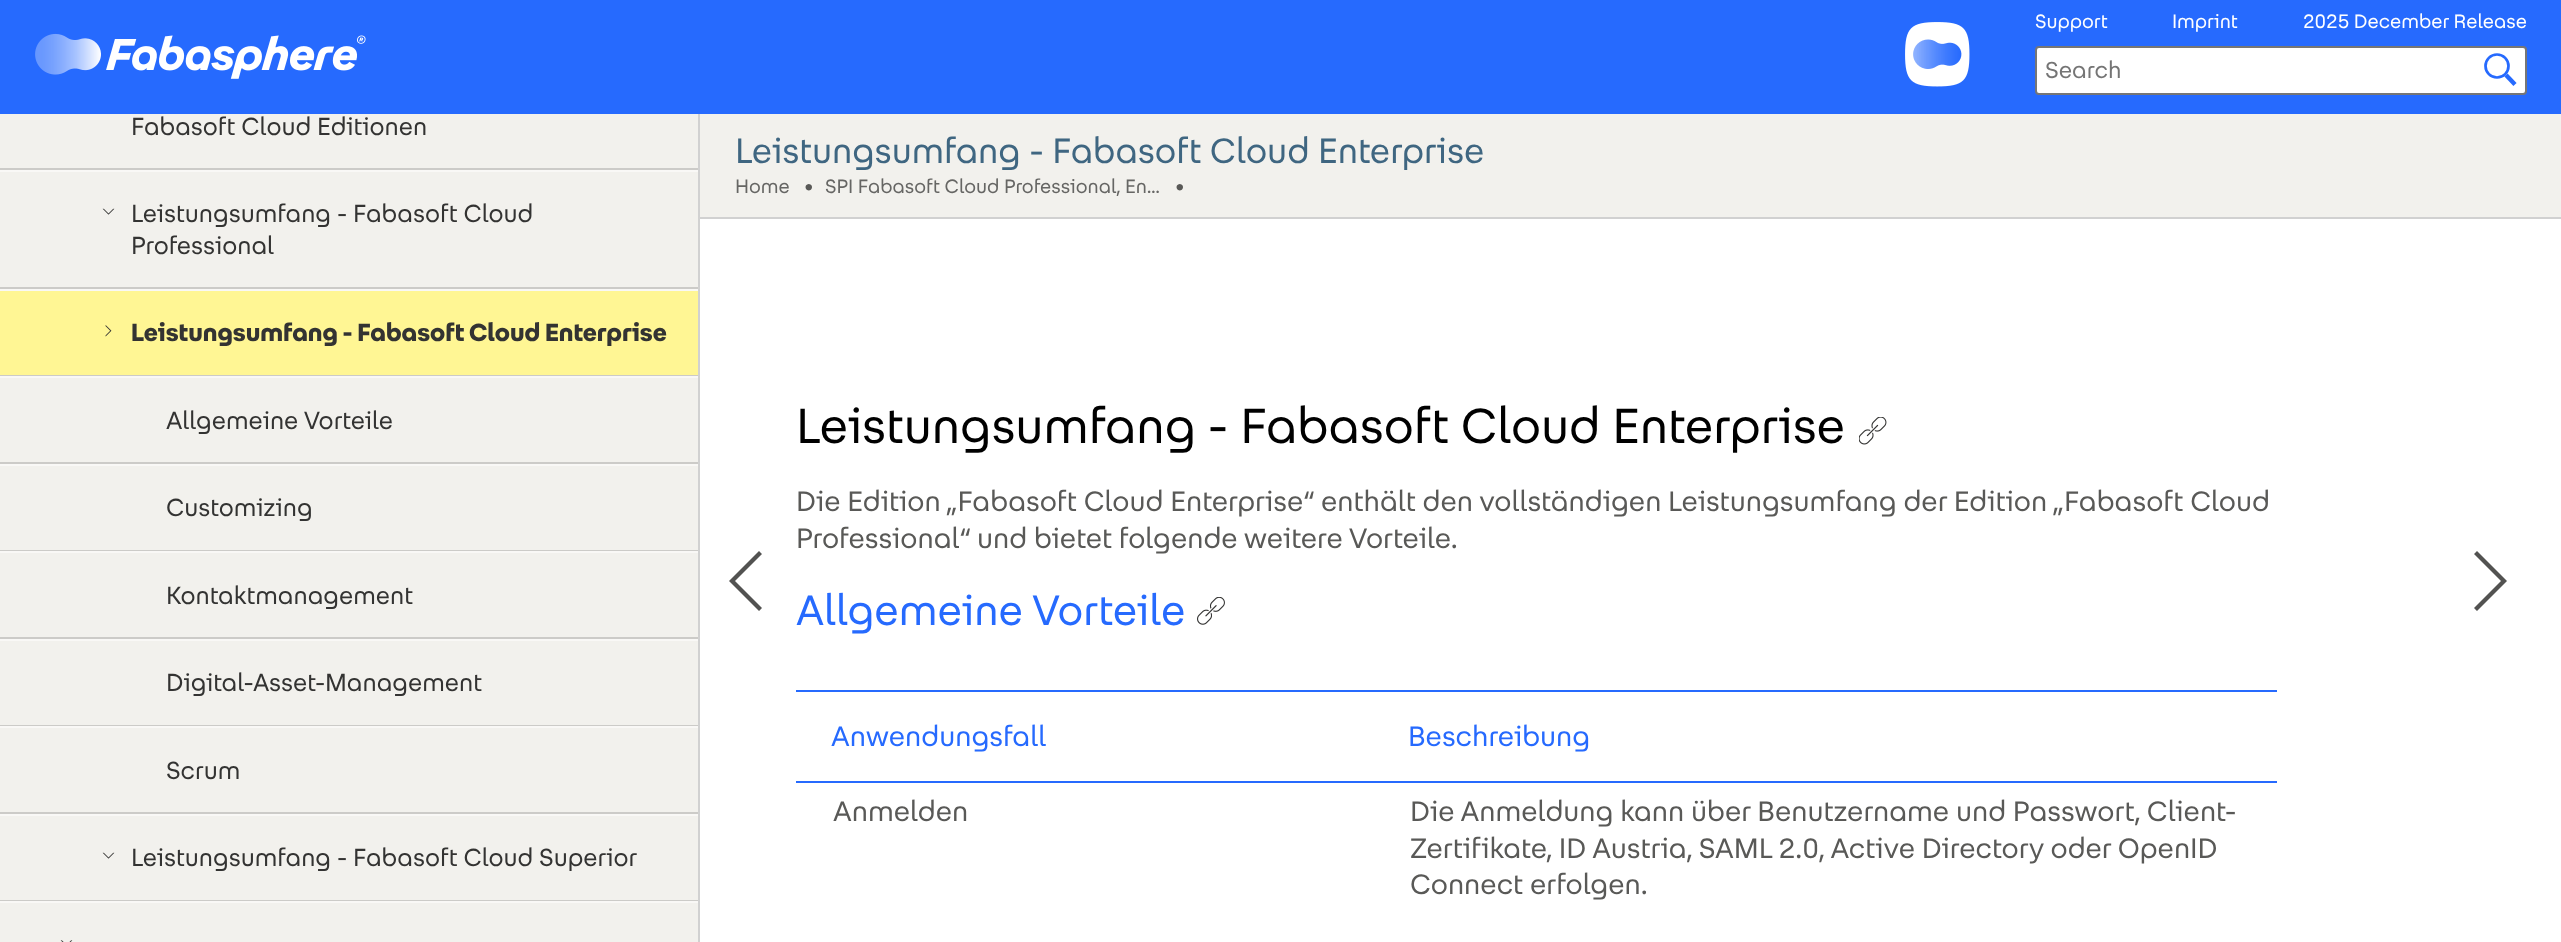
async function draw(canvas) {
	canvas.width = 2561;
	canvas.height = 942;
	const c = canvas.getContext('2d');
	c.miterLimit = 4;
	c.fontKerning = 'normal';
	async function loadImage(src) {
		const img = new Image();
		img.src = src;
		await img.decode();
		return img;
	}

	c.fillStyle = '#fff';
	c.fillRect(0, 0, 2561, 942);
	c.fillStyle = '#266afe';
	c.fillRect(0, 0, 2561, 114);
	c.drawImage(await loadImage('img1.png'), 35, 33, 331, 46);
	c.drawImage(await loadImage('img2.png'), 1905, 22, 65, 65);
	c.font = '19.25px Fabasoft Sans';
	c.fillStyle = '#fff';
	for (const [text, x, y] of [
		['Support', 2035, 28],
		['Imprint', 2172, 28],
		['2025 December Release', 2303, 28],
	]) {
		c.fillText(text, x, y);
	}
	c.beginPath();
	c.roundRect(2036, 47, 490, 47, 3);
	c.fill();
	c.strokeStyle = '#767676';
	c.lineWidth = 2;
	c.stroke();
	c.font = '23px Fabasoft Sans';
	c.fillStyle = '#757575';
	c.fillText('Search', 2045, 78);
	c.beginPath();
	c.arc(2497, 66, 11.5, 0, 2 * Math.PI);
	c.strokeStyle = '#266afe';
	c.lineWidth = 2.7;
	c.stroke();
	c.beginPath();
	c.moveTo(2506, 75);
	c.lineTo(2515, 84.5);
	c.lineWidth = 4.4;
	c.stroke();
	for (const [x, y, w, h, color] of [
		[0, 114, 698, 828, '#f2f1ed'],
		[698, 114, 2, 828, '#d1d1d1'],
		[0, 168, 698, 2, '#cccbc8'],
	]) {
		c.fillStyle = color;
		c.fillRect(x, y, w, h);
	}
	c.font = '24.5px Fabasoft Sans';
	c.fillStyle = '#333332';
	c.fillText('Fabasoft Cloud Editionen', 131, 135);
	c.drawImage(await loadImage('img3.png'), 102, 208, 13, 7);
	c.fillStyle = '#f9f8f6';
	c.fillRect(0, 170, 698, 2);
	c.fillStyle = '#cccbc8';
	c.fillRect(0, 287, 698, 2);
	c.fillStyle = '#333332';
	c.fillText('Leistungsumfang - Fabasoft Cloud', 131, 222);
	c.fillText('Professional', 131, 254);
	c.fillStyle = '#fff694';
	c.fillRect(0, 291, 698, 84);
	c.drawImage(await loadImage('img4.png'), 105, 325, 7, 12);
	c.fillStyle = '#f9f8f6';
	c.fillRect(0, 289, 698, 2);
	c.fillStyle = '#cccbc8';
	c.fillRect(0, 375, 698, 1);
	c.font = 'bold 24.5px Fabasoft Sans';
	c.fillStyle = '#333332';
	c.fillText('Leistungsumfang - Fabasoft Cloud Enterprise', 131, 341);
	c.fillStyle = '#f9f8f6';
	c.fillRect(0, 376, 698, 2);
	c.fillStyle = '#cccbc8';
	c.fillRect(0, 462, 698, 2);
	c.font = '24.5px Fabasoft Sans';
	c.fillStyle = '#333332';
	c.fillText('Allgemeine Vorteile', 166, 429);
	c.fillStyle = '#f9f8f6';
	c.fillRect(0, 464, 698, 2);
	c.fillStyle = '#cccbc8';
	c.fillRect(0, 550, 698, 1);
	c.fillStyle = '#333332';
	c.fillText('Customizing', 166, 516);
	c.fillStyle = '#f9f8f6';
	c.fillRect(0, 551, 698, 2);
	c.fillStyle = '#cccbc8';
	c.fillRect(0, 637, 698, 2);
	c.fillStyle = '#333332';
	c.fillText('Kontaktmanagement', 166, 604);
	c.fillStyle = '#f9f8f6';
	c.fillRect(0, 639, 698, 2);
	c.fillStyle = '#cccbc8';
	c.fillRect(0, 725, 698, 1);
	c.fillStyle = '#333332';
	c.fillText('Digital-Asset-Management', 166, 691);
	c.fillStyle = '#f9f8f6';
	c.fillRect(0, 726, 698, 2);
	c.fillStyle = '#cccbc8';
	c.fillRect(0, 812, 698, 2);
	c.fillStyle = '#333332';
	c.fillText('Scrum', 166, 779);
	c.drawImage(await loadImage('img3.png'), 102, 852, 13, 7);
	c.fillStyle = '#f9f8f6';
	c.fillRect(0, 814, 698, 2);
	c.fillStyle = '#cccbc8';
	c.fillRect(0, 900, 698, 1);
	c.fillStyle = '#333332';
	c.fillText('Leistungsumfang - Fabasoft Cloud Superior', 131, 866);
	c.fillStyle = '#f9f8f6';
	c.fillRect(0, 901, 698, 2);
	c.drawImage(await loadImage('img5.png'), 60, 940, 13, 2);
	c.fillStyle = '#f2f1ed';
	c.fillRect(700, 114, 1861, 103);
	c.fillStyle = '#d1d1d1';
	c.fillRect(700, 217, 1861, 2);
	c.font = '35px Fabasoft Sans';
	c.fillStyle = '#3f6681';
	c.fillText('Leistungsumfang - Fabasoft Cloud Enterprise', 735, 163);
	c.font = '19.25px Fabasoft Sans';
	c.fillStyle = '#666664';
	c.fillText('Home', 735, 193);
	c.font = 'bold 19.25px Fabasoft Sans';
	c.fillStyle = '#595957';
	c.fillText('•', 805, 193);
	c.font = '19.25px Fabasoft Sans';
	c.fillStyle = '#666664';
	c.fillText('SPI Fabasoft Cloud Professional, En…', 825, 193);
	c.font = 'bold 19.25px Fabasoft Sans';
	c.fillStyle = '#595957';
	c.fillText('•', 1176, 193);
	c.font = '49px Fabasoft Sans';
	c.fillStyle = '#000';
	c.fillText('Leistungsumfang - Fabasoft Cloud Enterprise', 796, 443);
	c.drawImage(await loadImage('img6.png'), 1859, 417, 28, 28);
	c.font = '28px Fabasoft Sans';
	c.fillStyle = '#595957';
	c.fillText('Die Edition „Fabasoft Cloud Enterprise“ enthält den vollständigen Leistungsumfang der Edition „Fabasoft Cloud', 796, 511);
	c.fillText('Professional“ und bietet folgende weitere Vorteile.', 796, 548);
	c.font = '42px Fabasoft Sans';
	c.fillStyle = '#266afe';
	c.fillText('Allgemeine Vorteile', 796, 625);
	c.drawImage(await loadImage('img7.png'), 1197, 597, 28, 28);
	c.fillRect(796, 690, 1481, 2);
	c.fillRect(796, 781, 1481, 2);
	c.font = '28px Fabasoft Sans';
	c.fillText('Anwendungsfall', 831, 746);
	c.fillText('Beschreibung', 1408, 746);
	c.fillStyle = '#595957';
	for (const [text, x, y] of [
		['Anmelden', 833, 821],
		['Die Anmeldung kann über Benutzername und Passwort, Client-', 1410, 821],
		['Zertifikate, ID Austria, SAML 2.0, Active Directory oder OpenID', 1410, 858],
		['Connect erfolgen.', 1410, 894],
	]) {
		c.fillText(text, x, y);
	}
	c.fillStyle = '#525251';
	c.beginPath();
	c.moveTo(735, 581);
	c.lineTo(762, 554);
	c.lineTo(759, 551);
	c.lineTo(729, 581);
	c.lineTo(759, 611);
	c.lineTo(762, 608);
	c.closePath();
	c.fill();
	c.beginPath();
	c.moveTo(2501, 581);
	c.lineTo(2474, 608);
	c.lineTo(2477, 611);
	c.lineTo(2507, 581);
	c.lineTo(2477, 551);
	c.lineTo(2474, 554);
	c.closePath();
	c.fill();
}

draw(document.querySelector('canvas'));
